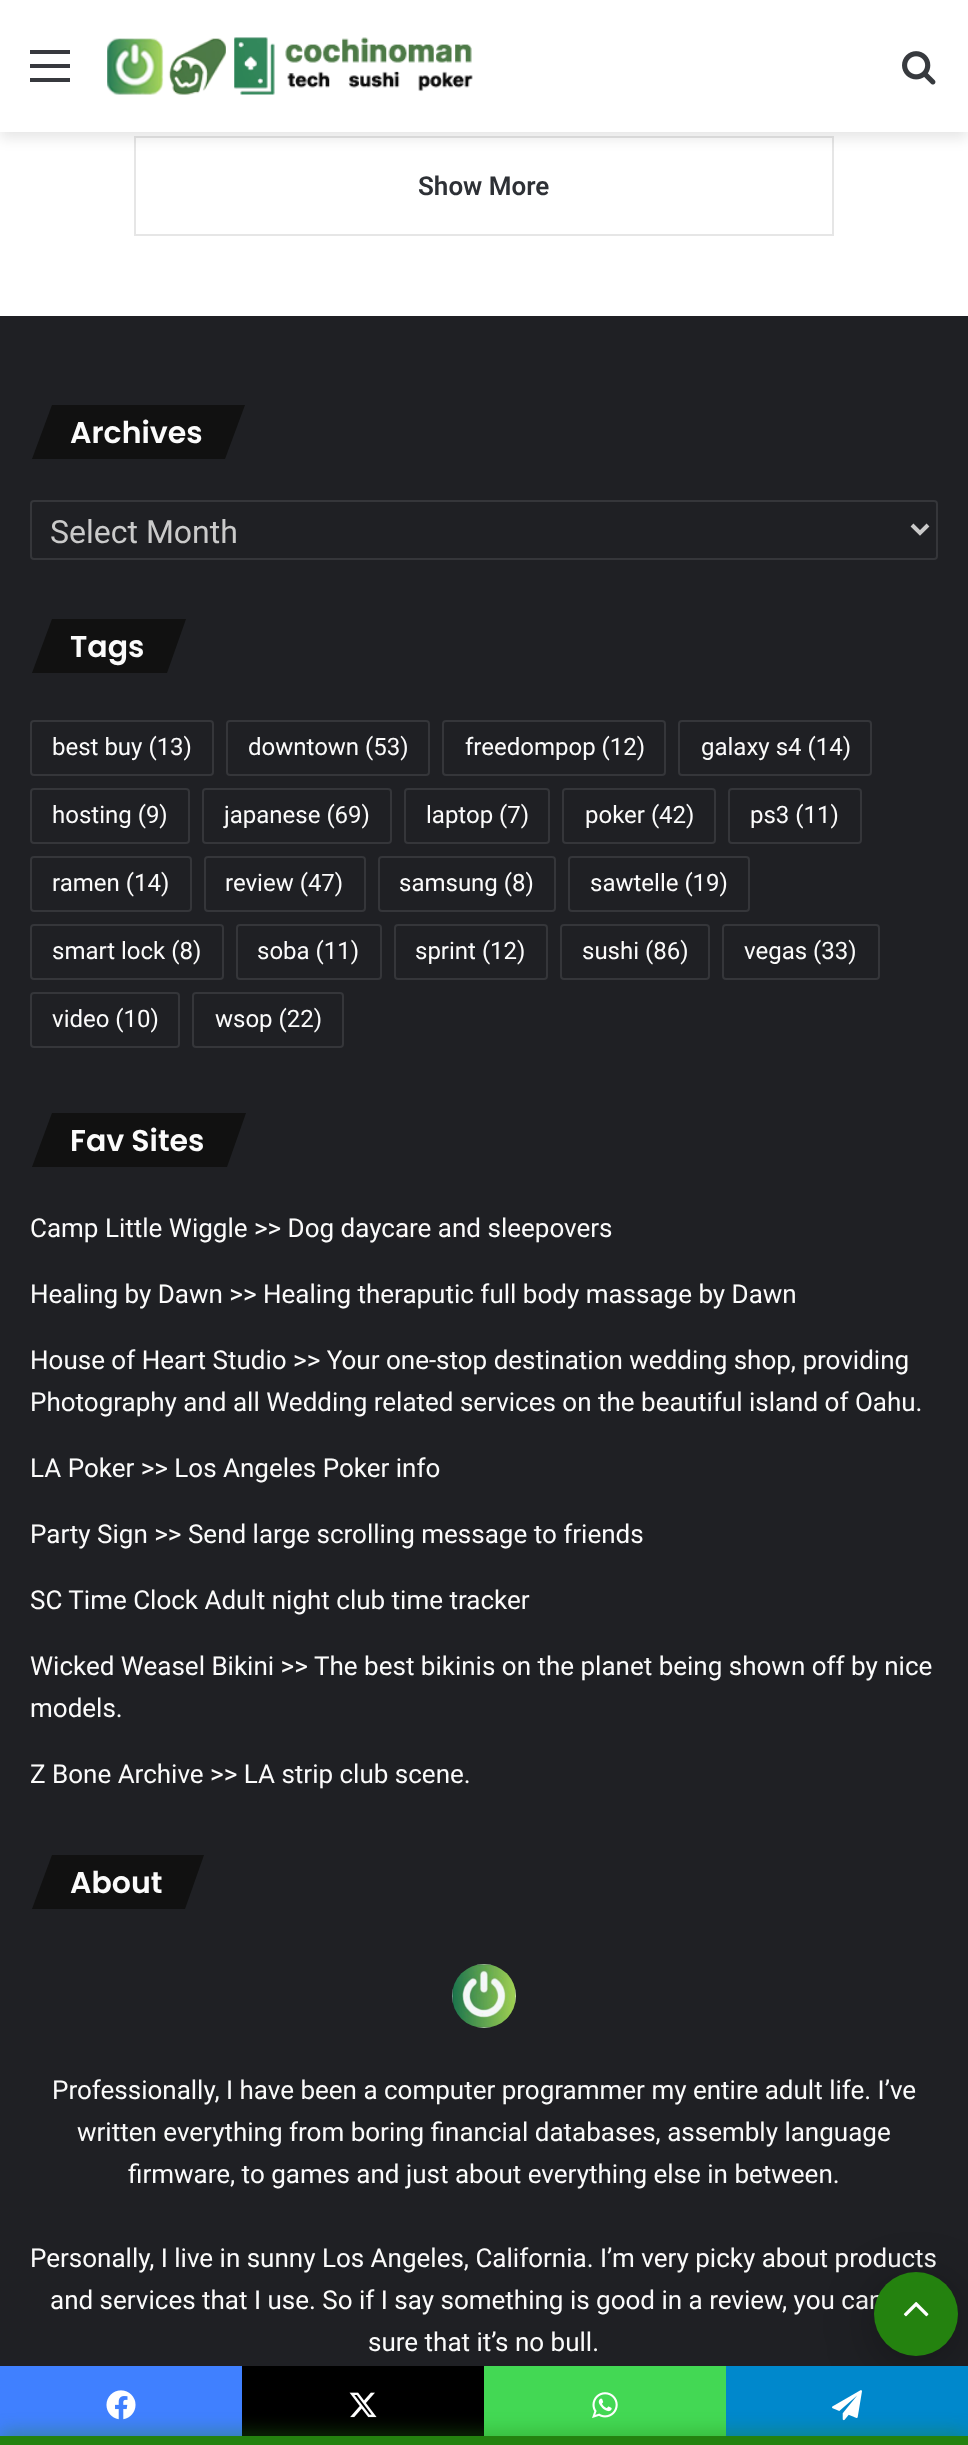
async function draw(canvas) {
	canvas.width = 968;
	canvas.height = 2445;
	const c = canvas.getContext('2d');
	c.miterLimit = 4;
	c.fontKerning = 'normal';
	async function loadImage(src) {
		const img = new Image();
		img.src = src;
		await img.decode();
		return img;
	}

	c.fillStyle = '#fff';
	c.fillRect(0, 0, 968, 2445);
	c.strokeStyle = '#e6e6e6';
	c.lineWidth = 2;
	c.strokeRect(135, 137, 698, 98);
	c.fillStyle = '#0000001a';
	c.filter = 'blur(7px)';
	c.beginPath();
	c.rect(0, 6, 968, 132);
	c.fill();
	c.filter = 'none';
	for (const [x, y, w, h, color] of [
		[0, 0, 968, 132, '#fff'],
		[30, 64, 40, 4, '#37393e'],
		[30, 50, 40, 4, '#37393e'],
		[30, 78, 40, 4, '#37393e'],
	]) {
		c.fillStyle = color;
		c.fillRect(x, y, w, h);
	}
	c.drawImage(await loadImage('img1.png'), 107, 37, 366, 58);
	c.drawImage(await loadImage('img2.png'), 902, 51, 34, 34);
	c.font = '600 26px Roboto';
	c.fillStyle = '#2e3136';
	c.fillText('Show More', 418, 195);
	c.fillStyle = '#1f2024';
	c.fillRect(0, 316, 968, 2050);
	c.fillStyle = '#111';
	c.beginPath();
	c.moveTo(52, 405);
	c.lineTo(245, 405);
	c.lineTo(225, 459);
	c.lineTo(32, 459);
	c.closePath();
	c.fill();
	c.font = '600 30px Poppins';
	c.fillStyle = '#fbfbfb';
	c.fillText('Archives', 70, 443);
	c.beginPath();
	c.roundRect(31, 501, 906, 58, 3);
	c.strokeStyle = '#35363a';
	c.stroke();
	c.beginPath();
	c.moveTo(912, 525);
	c.lineTo(920, 533);
	c.lineTo(928, 525);
	c.strokeStyle = '#cacaca';
	c.lineWidth = 4;
	c.stroke();
	c.font = '32px Roboto';
	c.fillStyle = '#cacaca';
	c.fillText('Select Month', 50, 543);
	c.fillStyle = '#111';
	c.beginPath();
	c.moveTo(52, 619);
	c.lineTo(186, 619);
	c.lineTo(167, 673);
	c.lineTo(32, 673);
	c.closePath();
	c.fill();
	c.font = '600 30px Poppins';
	c.fillStyle = '#fbfbfb';
	c.fillText('Tags', 70, 657);
	c.beginPath();
	c.roundRect(31, 721, 182, 54, 3);
	c.strokeStyle = '#35363a';
	c.lineWidth = 2;
	c.stroke();
	c.font = '24px Roboto';
	c.fillText('best buy (13)', 52, 755);
	c.beginPath();
	c.roundRect(227, 721, 202, 54, 3);
	c.stroke();
	c.fillText('downtown (53)', 248, 755);
	c.beginPath();
	c.roundRect(443, 721, 222, 54, 3);
	c.stroke();
	c.fillText('freedompop (12)', 465, 755);
	c.beginPath();
	c.roundRect(679, 721, 192, 54, 3);
	c.stroke();
	c.fillText('galaxy s4 (14)', 701, 755);
	c.beginPath();
	c.roundRect(31, 789, 158, 54, 3);
	c.stroke();
	c.fillText('hosting (9)', 52, 823);
	c.beginPath();
	c.roundRect(203, 789, 188, 54, 3);
	c.stroke();
	c.fillText('japanese (69)', 224, 823);
	c.beginPath();
	c.roundRect(405, 789, 144, 54, 3);
	c.stroke();
	c.fillText('laptop (7)', 426, 823);
	c.beginPath();
	c.roundRect(563, 789, 152, 54, 3);
	c.stroke();
	c.fillText('poker (42)', 585, 823);
	c.beginPath();
	c.roundRect(729, 789, 132, 54, 3);
	c.stroke();
	c.fillText('ps3 (11)', 750, 823);
	c.beginPath();
	c.roundRect(31, 857, 160, 54, 3);
	c.stroke();
	c.fillText('ramen (14)', 52, 891);
	c.beginPath();
	c.roundRect(205, 857, 160, 54, 3);
	c.stroke();
	c.fillText('review (47)', 225, 891);
	c.beginPath();
	c.roundRect(379, 857, 176, 54, 3);
	c.stroke();
	c.fillText('samsung (8)', 399, 891);
	c.beginPath();
	c.roundRect(569, 857, 180, 54, 3);
	c.stroke();
	c.fillText('sawtelle (19)', 590, 891);
	c.beginPath();
	c.roundRect(31, 925, 192, 54, 3);
	c.stroke();
	c.fillText('smart lock (8)', 52, 959);
	c.beginPath();
	c.roundRect(237, 925, 144, 54, 3);
	c.stroke();
	c.fillText('soba (11)', 257, 959);
	c.beginPath();
	c.roundRect(395, 925, 152, 54, 3);
	c.stroke();
	c.fillText('sprint (12)', 415, 959);
	c.beginPath();
	c.roundRect(561, 925, 148, 54, 3);
	c.stroke();
	c.fillText('sushi (86)', 582, 959);
	c.beginPath();
	c.roundRect(723, 925, 156, 54, 3);
	c.stroke();
	c.fillText('vegas (33)', 744, 959);
	c.beginPath();
	c.roundRect(31, 993, 148, 54, 3);
	c.stroke();
	c.fillText('video (10)', 52, 1027);
	c.beginPath();
	c.roundRect(193, 993, 150, 54, 3);
	c.stroke();
	c.fillText('wsop (22)', 215, 1027);
	c.fillStyle = '#111';
	c.beginPath();
	c.moveTo(52, 1113);
	c.lineTo(246, 1113);
	c.lineTo(227, 1167);
	c.lineTo(32, 1167);
	c.closePath();
	c.fill();
	c.font = '600 30px Poppins';
	c.fillStyle = '#fbfbfb';
	c.fillText('Fav Sites', 70, 1151);
	c.font = '26px Roboto';
	for (const [text, x, y] of [
		['Camp Little Wiggle >> Dog daycare and sleepovers', 30, 1237],
		['Healing by Dawn >> Healing theraputic full body massage by Dawn', 30, 1303],
		['House of Heart Studio >> Your one-stop destination wedding shop, providing', 30, 1369],
		['Photography and all Wedding related services on the beautiful island of Oahu.', 30, 1411],
		['LA Poker >> Los Angeles Poker info', 30, 1477],
		['Party Sign >> Send large scrolling message to friends', 30, 1543],
		['SC Time Clock Adult night club time tracker', 30, 1609],
		['Wicked Weasel Bikini >>', 30, 1675],
		['The best bikinis on the planet being shown off by nice', 314, 1675],
		['models.', 30, 1717],
		['Z Bone Archive >> LA strip club scene.', 30, 1783],
	]) {
		c.fillText(text, x, y);
	}
	c.fillStyle = '#111';
	c.beginPath();
	c.moveTo(52, 1855);
	c.lineTo(204, 1855);
	c.lineTo(185, 1909);
	c.lineTo(32, 1909);
	c.closePath();
	c.fill();
	c.font = '600 30px Poppins';
	c.fillStyle = '#fbfbfb';
	c.fillText('About', 70, 1893);
	c.drawImage(await loadImage('img3.png'), 452, 1964, 64, 64);
	c.font = '26px Roboto';
	for (const [text, x, y] of [
		['Professionally, I have been a computer programmer my entire adult life. I’ve', 52, 2099],
		['written everything from boring financial databases, assembly language', 77, 2141],
		['firmware, to games and just about everything else in between.', 128, 2183],
		['Personally, I live in sunny Los Angeles, California. I’m very picky about products', 30, 2267],
		['and services that I use. So if I say something is good in a review, you can', 50, 2309],
		['sure that it’s no bull.', 368, 2351],
	]) {
		c.fillText(text, x, y);
	}
	c.fillStyle = '#0000004d';
	c.filter = 'blur(25px)';
	c.beginPath();
	c.roundRect(874, 2282, 84, 84, 42);
	c.fill();
	c.filter = 'none';
	c.fillStyle = '#24820f';
	c.beginPath();
	c.arc(916, 2314, 42, 0, 2 * Math.PI);
	c.fill();
	c.drawImage(await loadImage('img4.png'), 903, 2302, 26, 15);
	c.fillStyle = '#4080ff';
	c.fillRect(0, 2366, 242, 70);
	c.drawImage(await loadImage('img5.png'), 106, 2390, 30, 30);
	c.fillStyle = '#000';
	c.fillRect(242, 2366, 242, 70);
	c.drawImage(await loadImage('img6.png'), 349, 2392, 28, 26);
	c.fillStyle = '#43d854';
	c.fillRect(484, 2366, 242, 70);
	c.drawImage(await loadImage('img7.png'), 592, 2392, 26, 26);
	c.fillStyle = '#08c';
	c.fillRect(726, 2366, 242, 70);
	c.drawImage(await loadImage('img8.png'), 832, 2390, 30, 31);
	c.fillStyle = '#24820fb3';
	c.filter = 'blur(10px)';
	c.beginPath();
	c.rect(0, 2436, 968, 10);
	c.fill();
	c.filter = 'none';
	c.fillStyle = '#24820f';
	c.fillRect(0, 2436, 968, 9);
}

draw(document.querySelector('canvas'));
